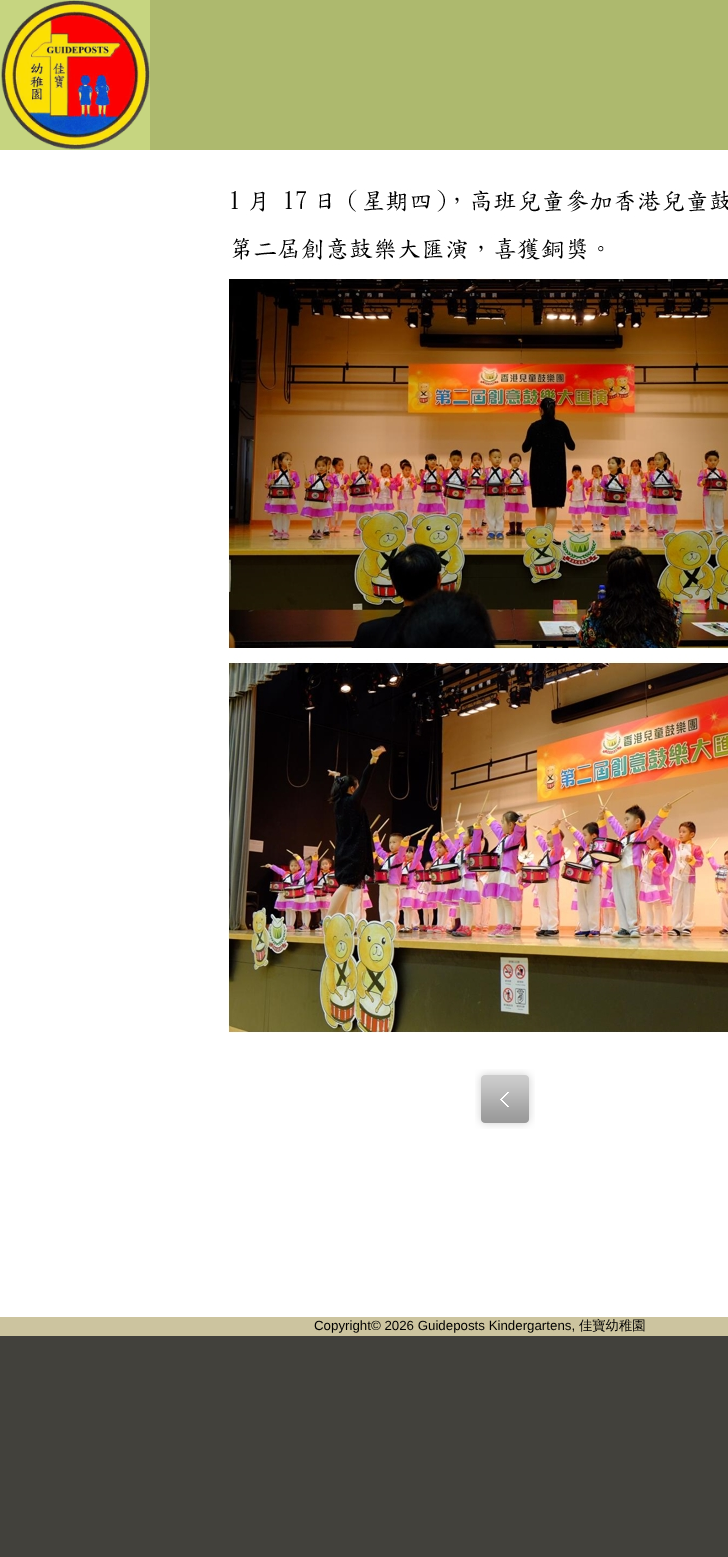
async function draw(canvas) {
	canvas.width = 728;
	canvas.height = 1557;
	const c = canvas.getContext('2d');
	c.miterLimit = 4;
	c.fontKerning = 'normal';
	async function loadImage(src) {
		const img = new Image();
		img.src = src;
		await img.decode();
		return img;
	}

	c.fillStyle = '#42413c';
	c.fillRect(0, 0, 728, 1557);
	for (const [x, y, w, h, color] of [
		[0, 150, 728, 1167, '#fff'],
		[150, 0, 578, 150, '#adb96e'],
		[0, 0, 150, 150, '#c6d580'],
	]) {
		c.fillStyle = color;
		c.fillRect(x, y, w, h);
	}
	c.drawImage(await loadImage('img1.png'), 1, 0, 149, 150);
	c.drawImage(await loadImage('img2.png'), 228, 189, 500, 844);
	c.drawImage(await loadImage('img3.png'), 475, 1069, 60, 60);
	c.fillStyle = '#ccc49f';
	c.fillRect(0, 1317, 728, 19);
	c.font = '13.3px Liberation Sans';
	c.fillStyle = '#000';
	c.fillText('Copyright© 2026 Guideposts Kindergartens,', 314, 1330);
	c.font = '500 13.3px WenQuanYi Zen Hei';
	c.fillText('佳寶幼稚園', 579, 1330);
}

draw(document.querySelector('canvas'));
